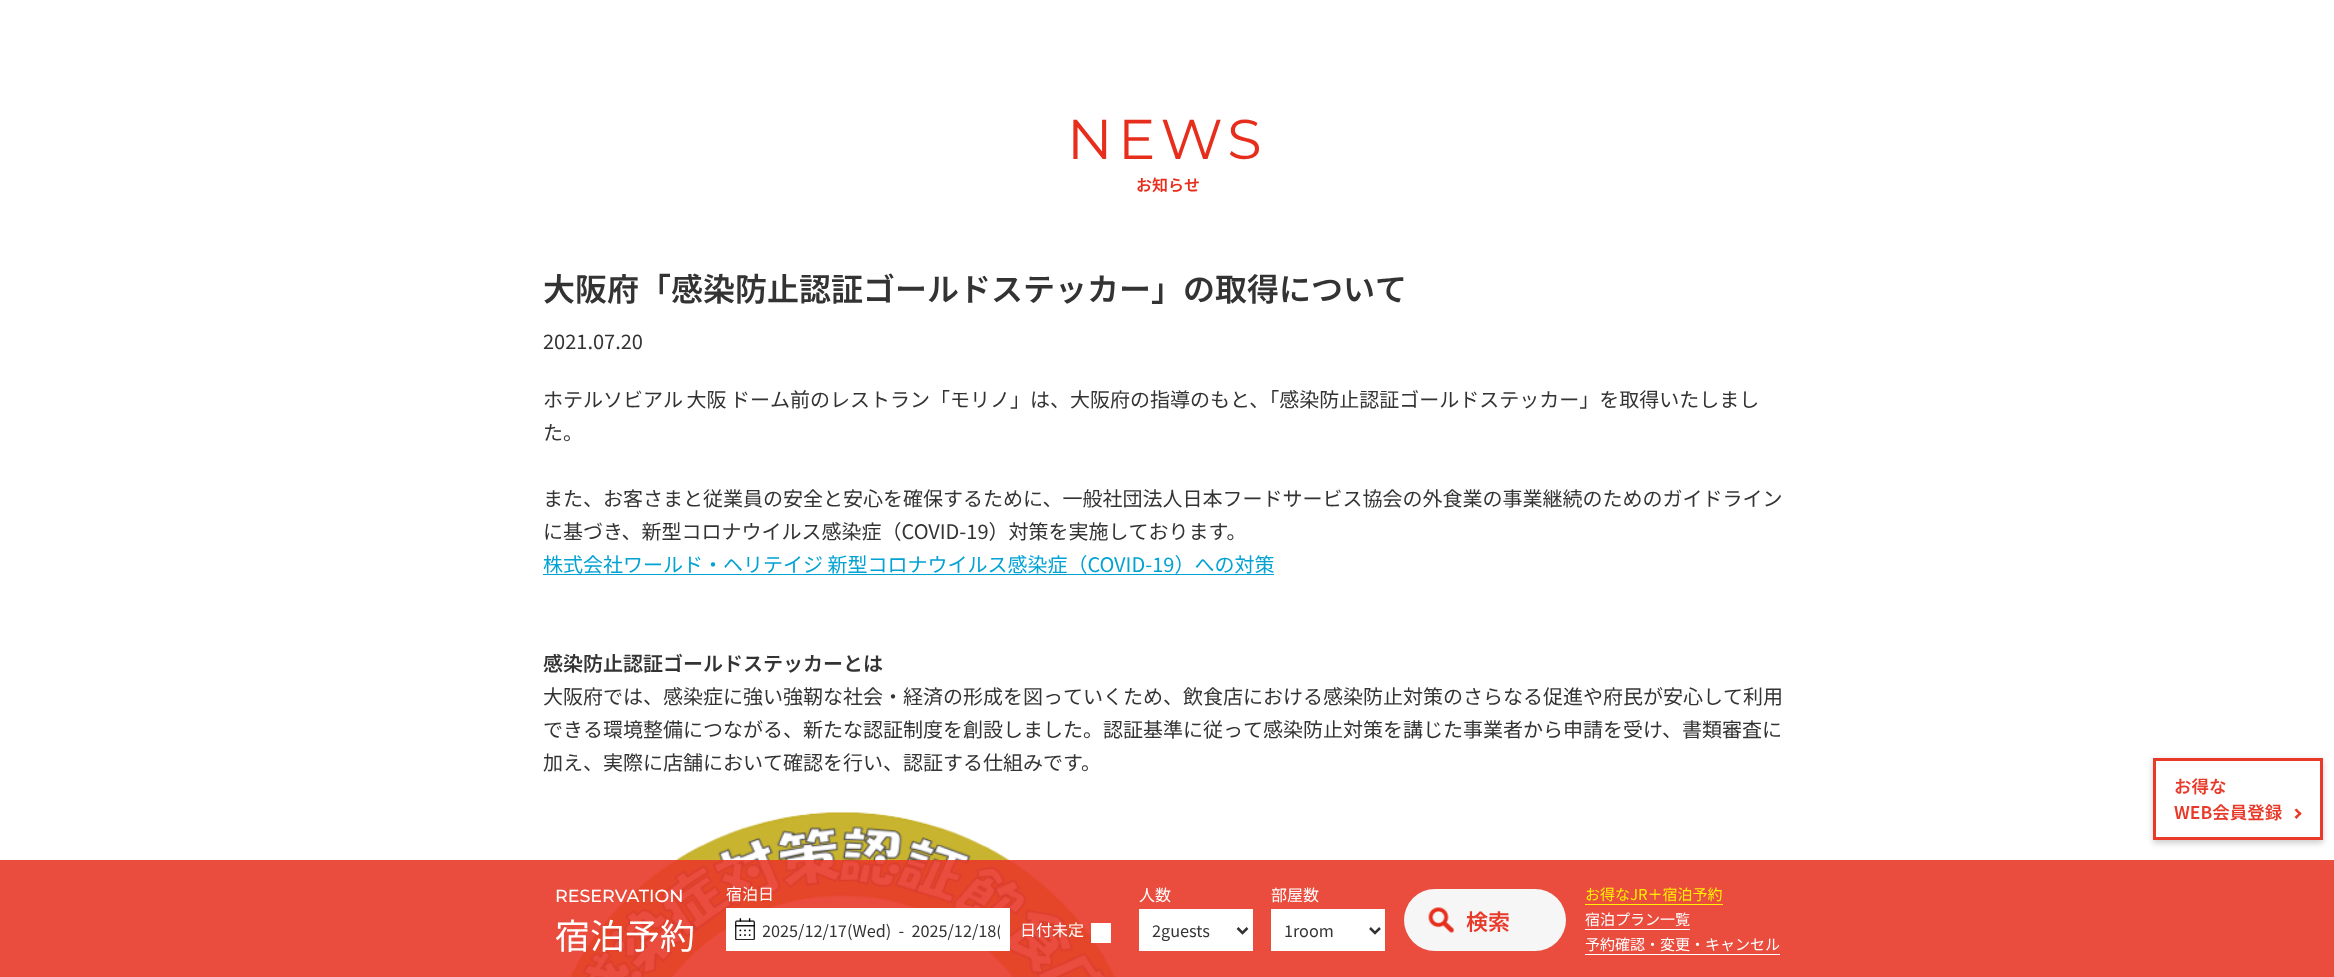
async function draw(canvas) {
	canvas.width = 2334;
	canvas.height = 977;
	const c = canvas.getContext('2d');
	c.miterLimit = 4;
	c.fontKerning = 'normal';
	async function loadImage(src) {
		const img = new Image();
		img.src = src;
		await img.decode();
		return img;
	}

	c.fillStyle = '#fff';
	c.fillRect(0, 0, 2334, 977);
	c.letterSpacing = '5.5px';
	c.font = '56px Montserrat';
	c.fillStyle = '#e72e1d';
	c.fillText('NEWS', 1067, 159);
	c.letterSpacing = '0px';
	c.font = '600 16px Noto Sans JP';
	c.fillText('お知らせ', 1136, 191);
	c.font = '600 32px Noto Sans JP';
	c.fillStyle = '#333';
	c.fillText('大阪府「感染防止認証ゴールドステッカー」の取得について', 543, 301);
	c.font = '20px Noto Sans JP';
	c.fillText('2021.07.20', 543, 349);
	c.wordSpacing = '-1px';
	c.fillText('ホテルソビアル 大阪 ドーム前のレストラン「モリノ」は、大阪府の指導のもと、「感染防止認証ゴールドステッカー」を取得いたしまし', 543, 407);
	c.wordSpacing = '0px';
	for (const [text, x, y] of [
		['た。', 543, 440],
		['また、お客さまと従業員の安全と安心を確保するために、一般社団法人日本フードサービス協会の外食業の事業継続のためのガイドライン', 543, 506],
		['に基づき、新型コロナウイルス感染症（COVID-19）対策を実施しております。', 543, 539],
	]) {
		c.fillText(text, x, y);
	}
	c.fillStyle = '#02a2d3';
	c.fillText('株式会社ワールド・ヘリテイジ 新型コロナウイルス感染症（COVID-19）への対策', 543, 572);
	c.fillRect(543, 574, 731, 1);
	c.font = '600 20px Noto Sans JP';
	c.fillStyle = '#333';
	c.fillText('感染防止認証ゴールドステッカーとは', 543, 671);
	c.font = '20px Noto Sans JP';
	for (const [text, x, y] of [
		['大阪府では、感染症に強い強靭な社会・経済の形成を図っていくため、飲食店における感染防止対策のさらなる促進や府民が安心して利用', 543, 704],
		['できる環境整備につながる、新たな認証制度を創設しました。認証基準に従って感染防止対策を講じた事業者から申請を受け、書類審査に', 543, 737],
		['加え、実際に店舗において確認を行い、認証する仕組みです。', 543, 770],
	]) {
		c.fillText(text, x, y);
	}
	c.drawImage(await loadImage('img1.png'), 569, 811, 547, 166);
	c.save();
	c.beginPath();
	c.moveTo(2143, 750);
	c.lineTo(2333, 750);
	c.lineTo(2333, 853);
	c.lineTo(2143, 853);
	c.closePath();
	c.moveTo(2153, 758);
	c.lineTo(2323, 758);
	c.lineTo(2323, 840);
	c.lineTo(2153, 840);
	c.closePath();
	c.clip('evenodd');
	c.fillStyle = '#00000033';
	c.filter = 'blur(3px)';
	c.beginPath();
	c.rect(2153, 760, 170, 83);
	c.fill();
	c.filter = 'none';
	c.restore();
	c.strokeStyle = '#e83929';
	c.lineWidth = 3;
	c.strokeRect(2154.5, 759.5, 167, 79);
	c.font = '600 17.5px Noto Sans JP';
	c.fillStyle = '#e83929';
	c.fillText('お得な', 2174, 793);
	c.fillText('WEB会員登録', 2174, 819);
	c.beginPath();
	c.moveTo(2296.5, 808.5);
	c.lineTo(2301.5, 813.5);
	c.lineTo(2300, 815.5);
	c.lineTo(2294.5, 810);
	c.closePath();
	c.fill();
	c.beginPath();
	c.moveTo(2300, 812);
	c.lineTo(2301.5, 813.5);
	c.lineTo(2296.5, 819);
	c.lineTo(2294.5, 817);
	c.closePath();
	c.fill();
	c.fillStyle = '#e83929e6';
	c.fillRect(0, 860, 2334, 117);
	c.font = '500 17.5px Montserrat';
	c.fillStyle = '#fff';
	c.fillText('RESERVATION', 555, 902);
	c.font = '35px Noto Sans JP';
	c.fillText('宿泊予約', 555, 949);
	c.font = '16px Noto Sans JP';
	c.fillText('宿泊日', 726, 900);
	c.fillRect(726, 908, 284, 43);
	c.drawImage(await loadImage('img2.png'), 735, 918, 20, 22);
	c.save();
	c.beginPath();
	c.rect(763, 918, 237, 23);
	c.clip();
	c.font = '16.25px Noto Sans JP';
	c.fillStyle = '#333';
	c.fillText('2025/12/17(Wed)  -  2025/12/18(', 762, 937);
	c.restore();
	c.fillText('日付未定', 1020, 936);
	c.fillRect(1091, 923, 20, 20);
	c.fillText('人数', 1139, 901);
	c.fillRect(1139, 909, 114, 42);
	c.beginPath();
	c.moveTo(1237.5, 928);
	c.lineTo(1242.5, 933);
	c.lineTo(1247.5, 928);
	c.strokeStyle = '#333';
	c.lineWidth = 2.5;
	c.stroke();
	c.font = '16.25px Noto Sans JP';
	c.fillStyle = '#333';
	c.fillText('2guests', 1152, 937);
	c.font = '16px Noto Sans JP';
	c.fillStyle = '#fff';
	c.fillText('部屋数', 1271, 901);
	c.fillRect(1271, 909, 114, 42);
	c.beginPath();
	c.moveTo(1370, 928);
	c.lineTo(1375, 933);
	c.lineTo(1380, 928);
	c.stroke();
	c.font = '16.25px Noto Sans JP';
	c.fillStyle = '#333';
	c.fillText('1room', 1284, 937);
	c.fillStyle = '#f6f6f6';
	c.beginPath();
	c.roundRect(1404, 889, 162, 62, 31);
	c.fill();
	c.drawImage(await loadImage('img3.png'), 1428, 907, 26, 26);
	c.font = '600 22px Noto Sans JP';
	c.fillStyle = '#e83929';
	c.fillText('検索', 1466, 930);
	c.font = '15px Noto Sans JP';
	c.fillStyle = '#fff100';
	c.fillText('お得なJR＋宿泊予約', 1585, 900);
	c.fillRect(1585, 904, 138, 1);
	c.fillStyle = '#fff';
	c.fillText('宿泊プラン一覧', 1585, 925);
	c.fillRect(1585, 929, 105, 1);
	c.fillText('予約確認・変更・キャンセル', 1585, 950);
	c.fillRect(1585, 954, 195, 1);
}

draw(document.querySelector('canvas'));
